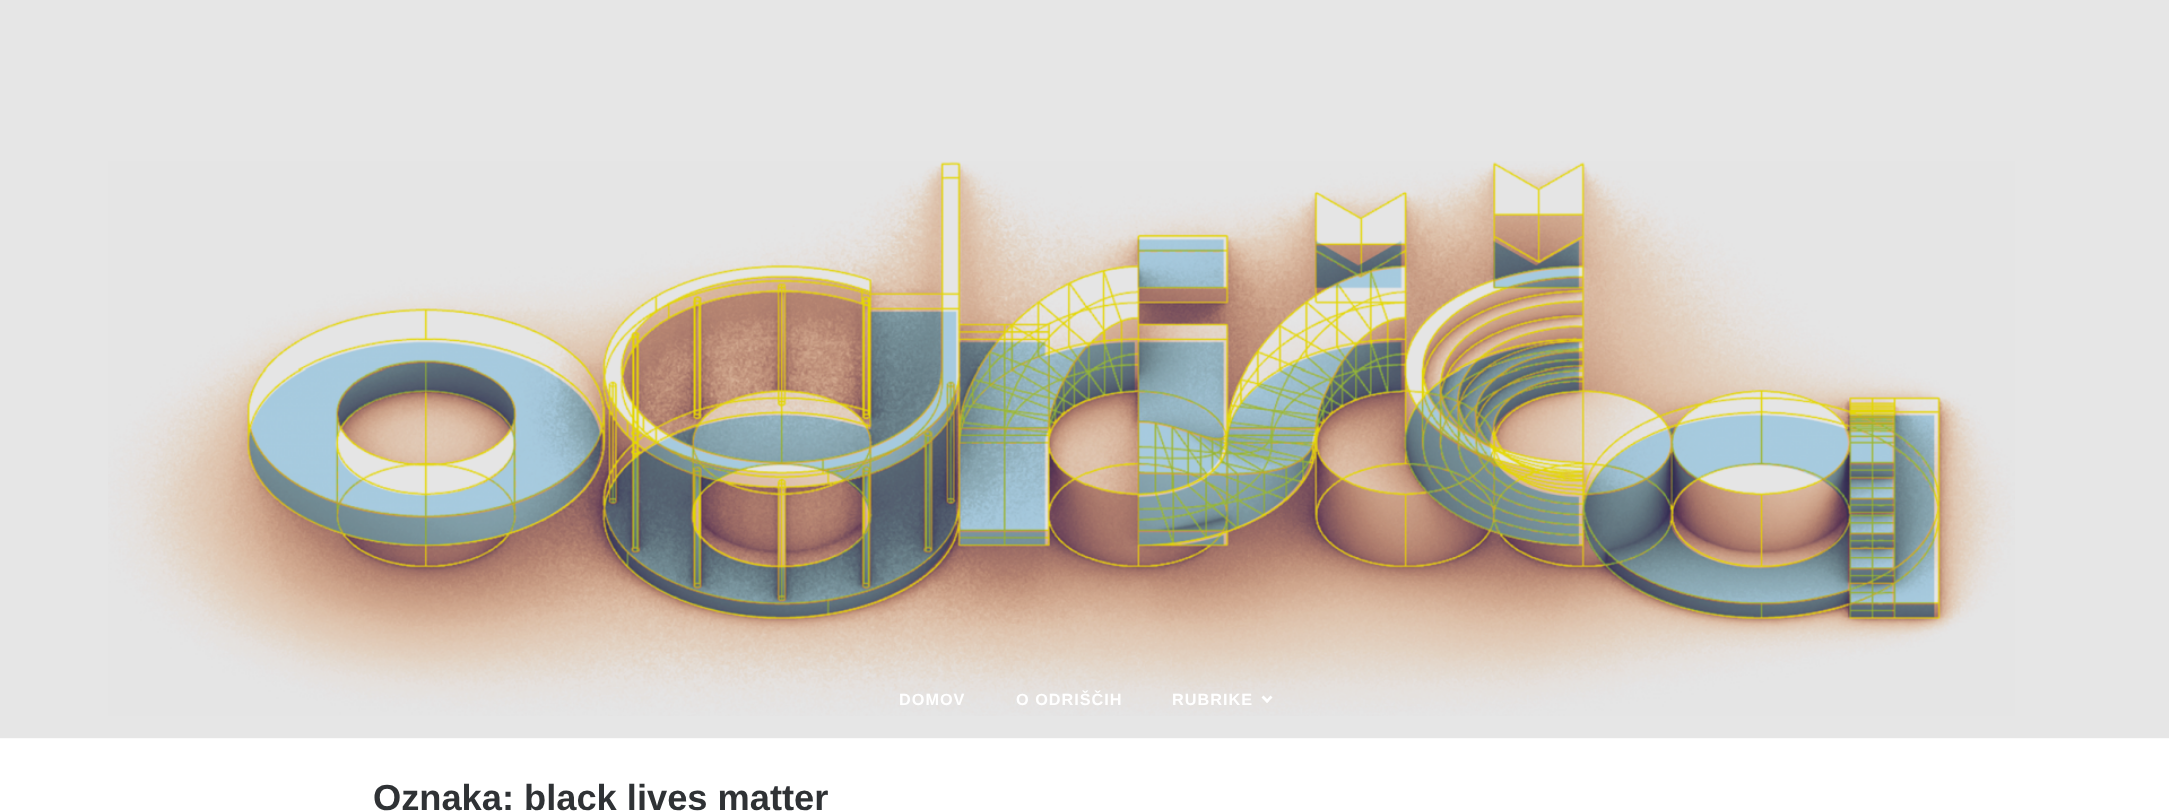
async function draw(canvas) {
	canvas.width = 2169;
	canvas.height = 811;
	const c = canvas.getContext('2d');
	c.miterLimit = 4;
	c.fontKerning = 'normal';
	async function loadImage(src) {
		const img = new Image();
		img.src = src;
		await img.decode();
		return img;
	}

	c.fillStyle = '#fff';
	c.fillRect(0, 0, 2169, 811);
	c.fillStyle = '#e6e6e6';
	c.fillRect(0, 0, 2169, 738);
	c.drawImage(await loadImage('img1.png'), 108, 161, 1907, 555);
	c.fillStyle = '#fafafa';
	c.fillRect(0, 738, 2169, 1);
	c.letterSpacing = '1px';
	c.font = 'bold 16.25px Liberation Sans';
	c.fillStyle = '#fff';
	for (const [text, x, y] of [
		['DOMOV', 899, 705],
		['O ODRIŠČIH', 1016, 705],
		['RUBRIKE', 1172, 705],
	]) {
		c.fillText(text, x, y);
	}
	c.beginPath();
	c.moveTo(1272.5, 697.5);
	c.lineTo(1267, 703);
	c.lineTo(1265.5, 701);
	c.lineTo(1270.5, 695.5);
	c.closePath();
	c.fill();
	c.beginPath();
	c.moveTo(1269, 701);
	c.lineTo(1267, 703);
	c.lineTo(1261.5, 697.5);
	c.lineTo(1263.5, 695.5);
	c.closePath();
	c.fill();
	c.letterSpacing = '0px';
	c.font = 'bold 36.25px Liberation Sans';
	c.fillStyle = '#2f3235';
	c.fillText('Oznaka: black lives matter', 373, 810);
}

draw(document.querySelector('canvas'));
